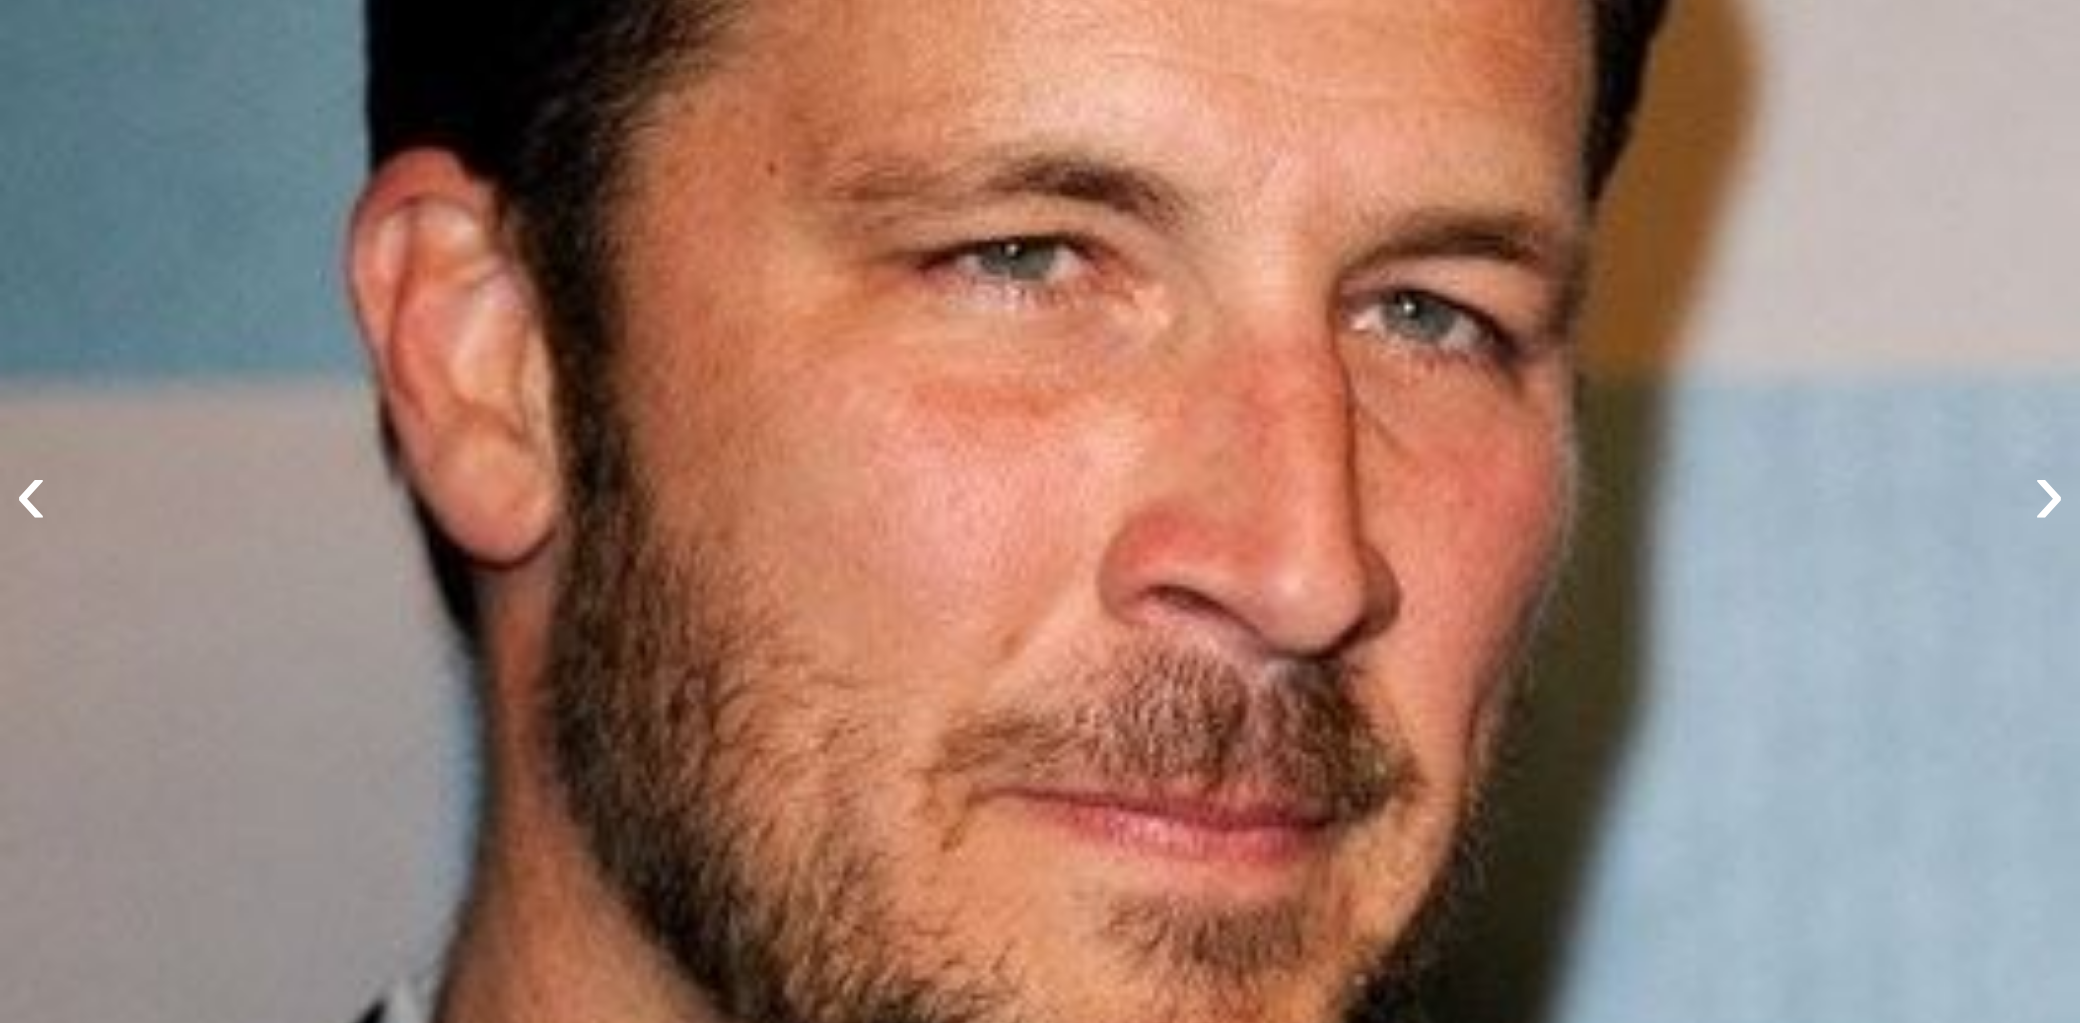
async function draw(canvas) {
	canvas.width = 2080;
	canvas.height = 1023;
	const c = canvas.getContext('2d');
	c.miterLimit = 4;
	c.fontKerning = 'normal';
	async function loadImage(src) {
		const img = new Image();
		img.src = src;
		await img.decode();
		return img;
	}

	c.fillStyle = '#fff';
	c.fillRect(0, 0, 2080, 1023);
	c.drawImage(await loadImage('img1.png'), 0, 0, 2080, 1023);
	c.font = '96px Liberation Sans';
	c.fillText('‹', 15, 524);
	c.fillText('›', 2033, 524);
}

draw(document.querySelector('canvas'));
